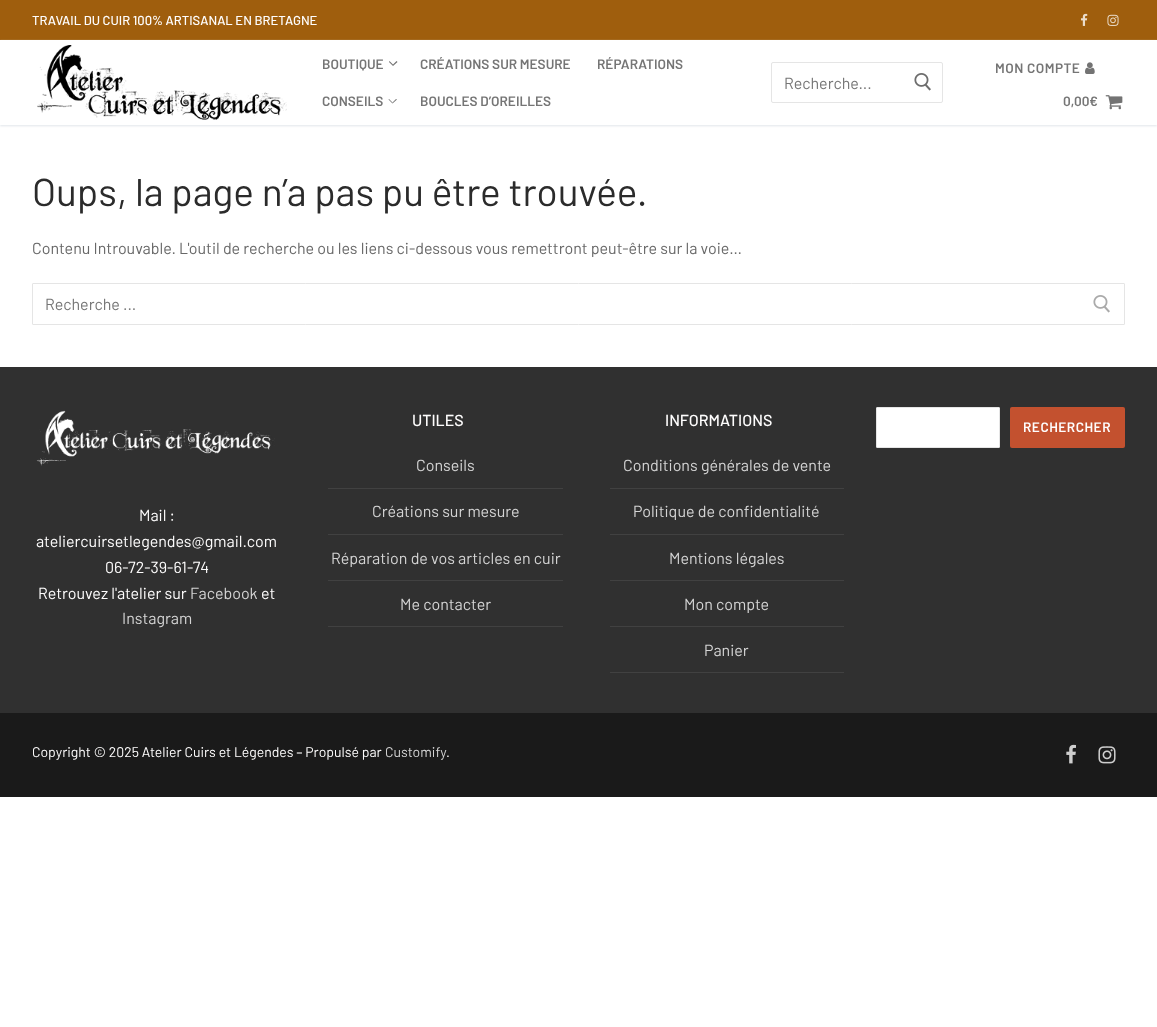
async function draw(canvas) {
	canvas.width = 1157;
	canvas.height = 1027;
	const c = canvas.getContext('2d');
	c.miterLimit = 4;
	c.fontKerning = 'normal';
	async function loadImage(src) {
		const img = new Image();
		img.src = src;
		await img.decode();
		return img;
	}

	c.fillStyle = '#fff';
	c.fillRect(0, 0, 1157, 1027);
	c.fillStyle = '#9f5e0d';
	c.fillRect(0, 0, 1157, 40);
	c.font = '500 13px Barlow';
	c.fillStyle = '#fefdfd';
	c.fillText('TRAVAIL DU CUIR 100% ARTISANAL EN BRETAGNE', 32, 25);
	c.drawImage(await loadImage('img1.png'), 1080, 13, 8, 13);
	c.drawImage(await loadImage('img2.png'), 1107, 14, 12, 12);
	c.save();
	c.beginPath();
	c.moveTo(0, 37);
	c.lineTo(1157, 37);
	c.lineTo(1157, 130);
	c.lineTo(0, 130);
	c.closePath();
	c.moveTo(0, 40);
	c.lineTo(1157, 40);
	c.lineTo(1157, 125);
	c.lineTo(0, 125);
	c.closePath();
	c.clip('evenodd');
	c.fillStyle = '#e1e5ea';
	c.filter = 'blur(1px)';
	c.beginPath();
	c.rect(0, 41, 1157, 85);
	c.fill();
	c.filter = 'none';
	c.restore();
	c.drawImage(await loadImage('img3.png'), 37, 45, 250, 75);
	c.font = '600 13.6px Barlow';
	c.fillStyle = '#757575';
	c.fillText('BOUTIQUE', 322, 69);
	c.fillStyle = '#737373';
	c.beginPath();
	c.moveTo(393, 66);
	c.lineTo(389, 62);
	c.lineTo(389.5, 61);
	c.lineTo(393, 64.5);
	c.closePath();
	c.moveTo(397.5, 62);
	c.lineTo(393, 66);
	c.lineTo(393, 64.5);
	c.lineTo(396.5, 61);
	c.closePath();
	c.fill();
	c.fillStyle = '#757575';
	for (const [text, x, y] of [
		['CRÉATIONS SUR MESURE', 420, 69],
		['RÉPARATIONS', 597, 69],
		['CONSEILS', 322, 106],
	]) {
		c.fillText(text, x, y);
	}
	c.fillStyle = '#737373';
	c.beginPath();
	c.moveTo(392.5, 103.5);
	c.lineTo(388.5, 99.5);
	c.lineTo(389, 99);
	c.lineTo(392.5, 102.5);
	c.closePath();
	c.fill();
	c.beginPath();
	c.moveTo(397, 99.5);
	c.lineTo(392.5, 103.5);
	c.lineTo(392.5, 102.5);
	c.lineTo(396, 99);
	c.closePath();
	c.fill();
	c.fillStyle = '#757575';
	c.fillText('BOUCLES D’OREILLES', 420, 106);
	c.beginPath();
	c.roundRect(771.5, 62.5, 171, 40, 1.5);
	c.strokeStyle = '#e5e5e5';
	c.stroke();
	c.font = '16px Barlow';
	c.fillText('Recherche...', 784, 89);
	c.drawImage(await loadImage('img4.png'), 914, 73, 17, 18);
	c.letterSpacing = '0.5px';
	c.font = '600 13.6px Barlow';
	c.fillText('MON COMPTE', 995, 73);
	c.drawImage(await loadImage('img5.png'), 1085, 62, 10, 12);
	c.letterSpacing = '0px';
	c.fillText('0,00€', 1063, 106);
	c.drawImage(await loadImage('img6.png'), 1105, 95, 18, 15);
	c.font = '38.75px Barlow';
	c.fillStyle = '#2b2b2b';
	c.fillText('Oups, la page n’a pas pu être trouvée.', 32, 206);
	c.font = '16px Barlow';
	c.fillStyle = '#686868';
	c.fillText('Contenu Introuvable. L\'outil de recherche ou les liens ci-dessous vous remettront peut-être sur la voie…', 32, 254);
	c.beginPath();
	c.roundRect(32.5, 283.5, 1092, 41, 0.5);
	c.stroke();
	c.fillStyle = '#757575';
	c.fillText('Recherche ...', 45, 310);
	c.drawImage(await loadImage('img7.png'), 1093, 295, 17, 18);
	c.fillStyle = '#303030';
	c.fillRect(0, 367, 1157, 346);
	c.font = '500 16px Barlow';
	c.fillStyle = '#fefdfd';
	c.fillText('UTILES', 412, 426);
	c.fillStyle = '#414141';
	c.fillRect(328, 488, 235, 1);
	c.font = '16px Barlow';
	c.fillStyle = '#d4d4d4';
	c.fillText('Conseils', 416, 471);
	c.fillStyle = '#414141';
	c.fillRect(328, 534, 235, 1);
	c.fillStyle = '#d4d4d4';
	c.fillText('Créations sur mesure', 372, 517);
	c.fillStyle = '#414141';
	c.fillRect(328, 580, 235, 1);
	c.fillStyle = '#d4d4d4';
	c.fillText('Réparation de vos articles en cuir', 331, 564);
	c.fillStyle = '#414141';
	c.fillRect(328, 626, 235, 1);
	c.fillStyle = '#d4d4d4';
	c.fillText('Me contacter', 400, 610);
	c.font = '500 16px Barlow';
	c.fillStyle = '#fefdfd';
	c.fillText('INFORMATIONS', 665, 426);
	c.fillStyle = '#414141';
	c.fillRect(610, 488, 234, 1);
	c.font = '16px Barlow';
	c.fillStyle = '#d4d4d4';
	c.fillText('Conditions générales de vente', 623, 471);
	c.fillStyle = '#414141';
	c.fillRect(610, 534, 234, 1);
	c.fillStyle = '#d4d4d4';
	c.fillText('Politique de confidentialité', 633, 517);
	c.fillStyle = '#414141';
	c.fillRect(610, 580, 234, 1);
	c.fillStyle = '#d4d4d4';
	c.fillText('Mentions légales', 669, 564);
	c.fillStyle = '#414141';
	c.fillRect(610, 626, 234, 1);
	c.fillStyle = '#d4d4d4';
	c.fillText('Mon compte', 684, 610);
	c.fillStyle = '#414141';
	c.fillRect(610, 672, 234, 1);
	c.fillStyle = '#d4d4d4';
	c.fillText('Panier', 704, 656);
	c.fillStyle = '#fff';
	c.beginPath();
	c.roundRect(876.5, 407.5, 123, 40, 0.5);
	c.fill();
	c.stroke();
	c.fillStyle = '#c3512f';
	c.beginPath();
	c.roundRect(1010, 407, 115, 41, 2);
	c.fill();
	c.letterSpacing = '0.5px';
	c.font = '600 13.6px Barlow';
	c.fillStyle = '#fefdfd';
	c.fillText('RECHERCHER', 1023, 432);
	c.drawImage(await loadImage('img8.png'), 36, 410, 239, 56);
	c.letterSpacing = '0px';
	c.font = '16px Barlow';
	for (const [text, x, y] of [
		['Mail :', 139, 521],
		['ateliercuirsetlegendes@gmail.com', 36, 547],
		['06-72-39-61-74', 105, 573],
		['Retrouvez l\'atelier sur', 38, 599],
	]) {
		c.fillText(text, x, y);
	}
	c.fillStyle = '#d4d4d4';
	c.fillText('Facebook', 190, 599);
	c.fillStyle = '#fefdfd';
	c.fillText('et', 261, 599);
	c.fillStyle = '#d4d4d4';
	c.fillText('Instagram', 122, 624);
	c.fillStyle = '#1a1a1a';
	c.fillRect(0, 713, 1157, 84);
	c.font = '14px Barlow';
	c.fillStyle = '#fefdfd';
	c.fillText('Copyright © 2025 Atelier Cuirs et Légendes – Propulsé par', 32, 757);
	c.fillStyle = '#d4d4d4';
	c.fillText('Customify', 385, 757);
	c.fillStyle = '#fefdfd';
	c.fillText('.', 446, 757);
	c.drawImage(await loadImage('img9.png'), 1066, 744, 10, 20);
	c.drawImage(await loadImage('img10.png'), 1098, 746, 18, 18);
}

draw(document.querySelector('canvas'));
